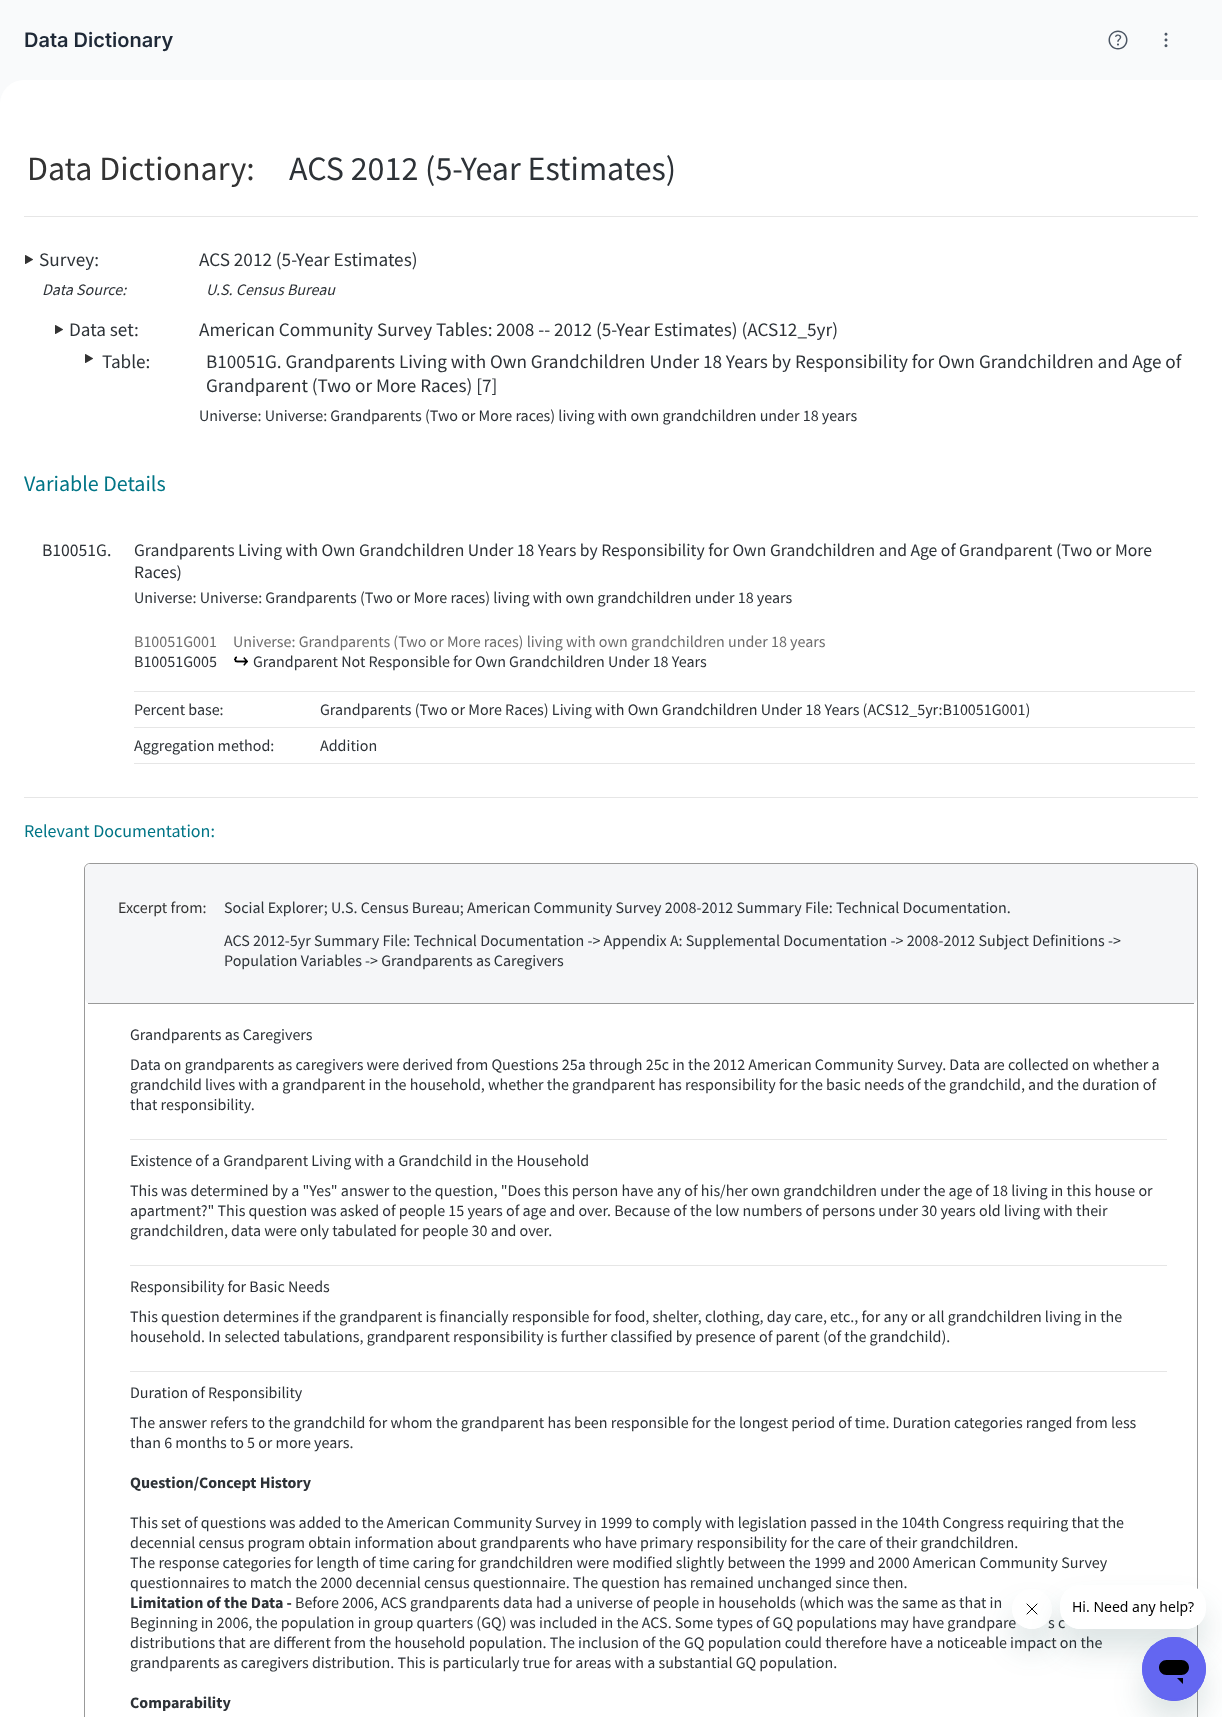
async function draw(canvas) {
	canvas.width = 1222;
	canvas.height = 1717;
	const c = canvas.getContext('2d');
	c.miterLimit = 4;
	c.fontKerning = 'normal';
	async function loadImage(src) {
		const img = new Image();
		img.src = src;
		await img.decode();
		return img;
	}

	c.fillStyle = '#f9fafb';
	c.fillRect(0, 0, 1222, 1717);
	c.font = '600 20px Inter';
	c.fillStyle = '#1f2937';
	c.fillText('Data Dictionary', 24, 47);
	c.drawImage(await loadImage('img1.png'), 1108, 30, 20, 20);
	c.drawImage(await loadImage('img2.png'), 1164, 32, 4, 16);
	c.fillStyle = '#fff';
	c.beginPath();
	c.roundRect(0, 80, 1222, 1637, [24, 0, 0, 0]);
	c.fill();
	c.fillStyle = '#e6e6e6';
	c.fillRect(24, 216, 1174, 1);
	c.font = '34px Source Sans Pro';
	c.fillStyle = '#333';
	c.fillText('Data Dictionary:', 27, 180);
	c.fillStyle = '#2d3237';
	c.fillText('ACS 2012 (5-Year Estimates)', 289, 180);
	c.drawImage(await loadImage('img3.png'), 25, 255, 8, 9);
	c.font = '19.2px Source Sans Pro';
	c.fillText('Survey:', 39, 266);
	c.fillText('ACS 2012 (5-Year Estimates)', 199, 266);
	c.font = 'italic 16px Source Sans Pro';
	c.fillText('Data Source:', 42, 295);
	c.fillText('U.S. Census Bureau', 206, 295);
	c.drawImage(await loadImage('img3.png'), 55, 325, 8, 9);
	c.font = '19.2px Source Sans Pro';
	c.fillText('Data set:', 69, 336);
	c.fillText('American Community Survey Tables: 2008 -- 2012 (5-Year Estimates) (ACS12_5yr)', 199, 336);
	c.drawImage(await loadImage('img3.png'), 85, 354, 8, 9);
	for (const [text, x, y] of [
		['Table:', 102, 368],
		['B10051G. Grandparents Living with Own Grandchildren Under 18 Years by Responsibility for Own Grandchildren and Age of', 206, 368],
		['Grandparent (Two or More Races) [7]', 206, 392],
	]) {
		c.fillText(text, x, y);
	}
	c.font = '16px Source Sans Pro';
	c.fillText('Universe: Universe: Grandparents (Two or More races) living with own grandchildren under 18 years', 199, 421);
	c.font = '22px Source Sans Pro';
	c.fillStyle = '#007586';
	c.fillText('Variable Details', 24, 491);
	c.font = '17.6px Source Sans Pro';
	c.fillStyle = '#2d3237';
	for (const [text, x, y] of [
		['B10051G.', 42, 556],
		['Grandparents Living with Own Grandchildren Under 18 Years by Responsibility for Own Grandchildren and Age of Grandparent (Two or More', 134, 556],
		['Races)', 134, 578],
	]) {
		c.fillText(text, x, y);
	}
	c.font = '16px Source Sans Pro';
	c.fillText('Universe: Universe: Grandparents (Two or More races) living with own grandchildren under 18 years', 134, 603);
	c.fillStyle = '#6d6d6d';
	c.fillText('B10051G001', 134, 647);
	c.fillText('Universe: Grandparents (Two or More races) living with own grandchildren under 18 years', 233, 647);
	c.fillStyle = '#2d3237';
	c.fillText('B10051G005', 134, 667);
	c.drawImage(await loadImage('img4.png'), 234, 656, 14, 10);
	c.fillText('Grandparent Not Responsible for Own Grandchildren Under 18 Years', 253, 667);
	c.fillStyle = '#e6e6e6';
	c.fillRect(134, 691, 1061, 1);
	c.fillRect(134, 727, 1061, 1);
	c.fillStyle = '#2d3237';
	c.fillText('Percent base:', 134, 715);
	c.fillText('Grandparents (Two or More Races) Living with Own Grandchildren Under 18 Years (ACS12_5yr:B10051G001)', 320, 715);
	c.fillStyle = '#e6e6e6';
	c.fillRect(134, 763, 1061, 1);
	c.fillStyle = '#2d3237';
	c.fillText('Aggregation method:', 134, 751);
	c.fillText('Addition', 320, 751);
	c.fillStyle = '#e6e6e6';
	c.fillRect(24, 797, 1174, 1);
	c.font = '18px Source Sans Pro';
	c.fillStyle = '#007586';
	c.fillText('Relevant Documentation:', 24, 837);
	c.fillStyle = '#999';
	c.beginPath();
	c.moveTo(90, 863);
	c.bezierCurveTo(87, 863, 84, 866, 84, 869);
	c.lineTo(84, 1717);
	c.lineTo(85, 1717);
	c.lineTo(85, 869);
	c.bezierCurveTo(85, 866, 87, 864, 90, 864);
	c.lineTo(1192, 864);
	c.bezierCurveTo(1195, 864, 1197, 866, 1197, 869);
	c.lineTo(1197, 1717);
	c.lineTo(1198, 1717);
	c.lineTo(1198, 869);
	c.bezierCurveTo(1198, 866, 1195, 863, 1192, 863);
	c.closePath();
	c.fill();
	c.fillStyle = '#f5f6f8';
	c.beginPath();
	c.roundRect(85, 864, 1112, 140, 6);
	c.fill();
	c.fillStyle = '#999';
	c.fillRect(88, 1003, 1106, 1);
	c.font = '16px Source Sans Pro';
	c.fillStyle = '#333';
	c.fillText('Excerpt from:', 118, 913);
	c.fillStyle = '#2d3237';
	for (const [text, x, y] of [
		['Social Explorer; U.S. Census Bureau; American Community Survey 2008-2012 Summary File: Technical Documentation.', 224, 913],
		['ACS 2012-5yr Summary File: Technical Documentation -> Appendix A: Supplemental Documentation -> 2008-2012 Subject Definitions ->', 224, 946],
		['Population Variables -> Grandparents as Caregivers', 224, 966],
		['Grandparents as Caregivers', 130, 1040],
		['Data on grandparents as caregivers were derived from Questions 25a through 25c in the 2012 American Community Survey. Data are collected on whether a', 130, 1070],
		['grandchild lives with a grandparent in the household, whether the grandparent has responsibility for the basic needs of the grandchild, and the duration of', 130, 1090],
		['that responsibility.', 130, 1110],
	]) {
		c.fillText(text, x, y);
	}
	c.fillStyle = '#e6e6e6';
	c.fillRect(130, 1139, 1037, 1);
	c.fillStyle = '#2d3237';
	for (const [text, x, y] of [
		['Existence of a Grandparent Living with a Grandchild in the Household', 130, 1166],
		['This was determined by a "Yes" answer to the question, "Does this person have any of his/her own grandchildren under the age of 18 living in this house or', 130, 1196],
		['apartment?" This question was asked of people 15 years of age and over. Because of the low numbers of persons under 30 years old living with their', 130, 1216],
		['grandchildren, data were only tabulated for people 30 and over.', 130, 1236],
	]) {
		c.fillText(text, x, y);
	}
	c.fillStyle = '#e6e6e6';
	c.fillRect(130, 1265, 1037, 1);
	c.fillStyle = '#2d3237';
	for (const [text, x, y] of [
		['Responsibility for Basic Needs', 130, 1292],
		['This question determines if the grandparent is financially responsible for food, shelter, clothing, day care, etc., for any or all grandchildren living in the', 130, 1322],
		['household. In selected tabulations, grandparent responsibility is further classified by presence of parent (of the grandchild).', 130, 1342],
	]) {
		c.fillText(text, x, y);
	}
	c.fillStyle = '#e6e6e6';
	c.fillRect(130, 1371, 1037, 1);
	c.fillStyle = '#2d3237';
	for (const [text, x, y] of [
		['Duration of Responsibility', 130, 1398],
		['The answer refers to the grandchild for whom the grandparent has been responsible for the longest period of time. Duration categories ranged from less', 130, 1428],
		['than 6 months to 5 or more years.', 130, 1448],
	]) {
		c.fillText(text, x, y);
	}
	c.font = 'bold 16px Source Sans Pro';
	c.fillText('Question/Concept History', 130, 1488);
	c.font = '16px Source Sans Pro';
	for (const [text, x, y] of [
		['This set of questions was added to the American Community Survey in 1999 to comply with legislation passed in the 104th Congress requiring that the', 130, 1528],
		['decennial census program obtain information about grandparents who have primary responsibility for the care of their grandchildren.', 130, 1548],
		['The response categories for length of time caring for grandchildren were modified slightly between the 1999 and 2000 American Community Survey', 130, 1568],
		['questionnaires to match the 2000 decennial census questionnaire. The question has remained unchanged since then.', 130, 1588],
	]) {
		c.fillText(text, x, y);
	}
	c.font = 'bold 16px Source Sans Pro';
	c.fillText('Limitation of the Data -', 130, 1608);
	c.font = '16px Source Sans Pro';
	for (const [text, x, y] of [
		['Before 2006, ACS grandparents data had a universe of people in households (which was the same as that in', 295, 1608],
		['Beginning in 2006, the population in group quarters (GQ) was included in the ACS. Some types of GQ populations may have grandpare', 130, 1628],
		['s c', 1048, 1628],
		['distributions that are different from the household population. The inclusion of the GQ population could therefore have a noticeable impact on the', 130, 1648],
		['grandparents as caregivers distribution. This is particularly true for areas with a substantial GQ population.', 130, 1668],
	]) {
		c.fillText(text, x, y);
	}
	c.font = 'bold 16px Source Sans Pro';
	c.fillText('Comparability', 130, 1708);
	c.save();
	c.beginPath();
	c.moveTo(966, 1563);
	c.lineTo(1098, 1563);
	c.lineTo(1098, 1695);
	c.lineTo(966, 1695);
	c.closePath();
	c.moveTo(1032, 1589);
	c.bezierCurveTo(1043, 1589, 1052, 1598, 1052, 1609);
	c.bezierCurveTo(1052, 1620, 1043, 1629, 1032, 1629);
	c.bezierCurveTo(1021, 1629, 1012, 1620, 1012, 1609);
	c.bezierCurveTo(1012, 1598, 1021, 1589, 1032, 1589);
	c.closePath();
	c.clip('evenodd');
	c.fillStyle = '#17494d26';
	c.filter = 'blur(15px)';
	c.beginPath();
	c.roundRect(1012, 1609, 40, 40, 20);
	c.fill();
	c.filter = 'none';
	c.restore();
	c.drawImage(await loadImage('img6.png'), 1012, 1600, 40, 29);
	c.save();
	c.beginPath();
	c.moveTo(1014, 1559);
	c.lineTo(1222, 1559);
	c.lineTo(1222, 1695);
	c.lineTo(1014, 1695);
	c.closePath();
	c.moveTo(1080, 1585);
	c.lineTo(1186, 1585);
	c.bezierCurveTo(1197, 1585, 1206, 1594, 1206, 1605);
	c.lineTo(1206, 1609);
	c.bezierCurveTo(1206, 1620, 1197, 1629, 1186, 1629);
	c.lineTo(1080, 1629);
	c.bezierCurveTo(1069, 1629, 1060, 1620, 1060, 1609);
	c.lineTo(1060, 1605);
	c.bezierCurveTo(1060, 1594, 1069, 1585, 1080, 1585);
	c.closePath();
	c.clip('evenodd');
	c.fillStyle = '#17494d26';
	c.filter = 'blur(15px)';
	c.beginPath();
	c.roundRect(1060, 1605, 146, 44, 20);
	c.fill();
	c.filter = 'none';
	c.restore();
	c.drawImage(await loadImage('img5.png'), 1060, 1588, 140, 41);
	c.fillStyle = '#17494d26';
	c.filter = 'blur(15px)';
	c.beginPath();
	c.roundRect(1142, 1657, 64, 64, 32);
	c.fill();
	c.filter = 'none';
	c.drawImage(await loadImage('img7.png'), 1142, 1637, 64, 64);
}

draw(document.querySelector('canvas'));
